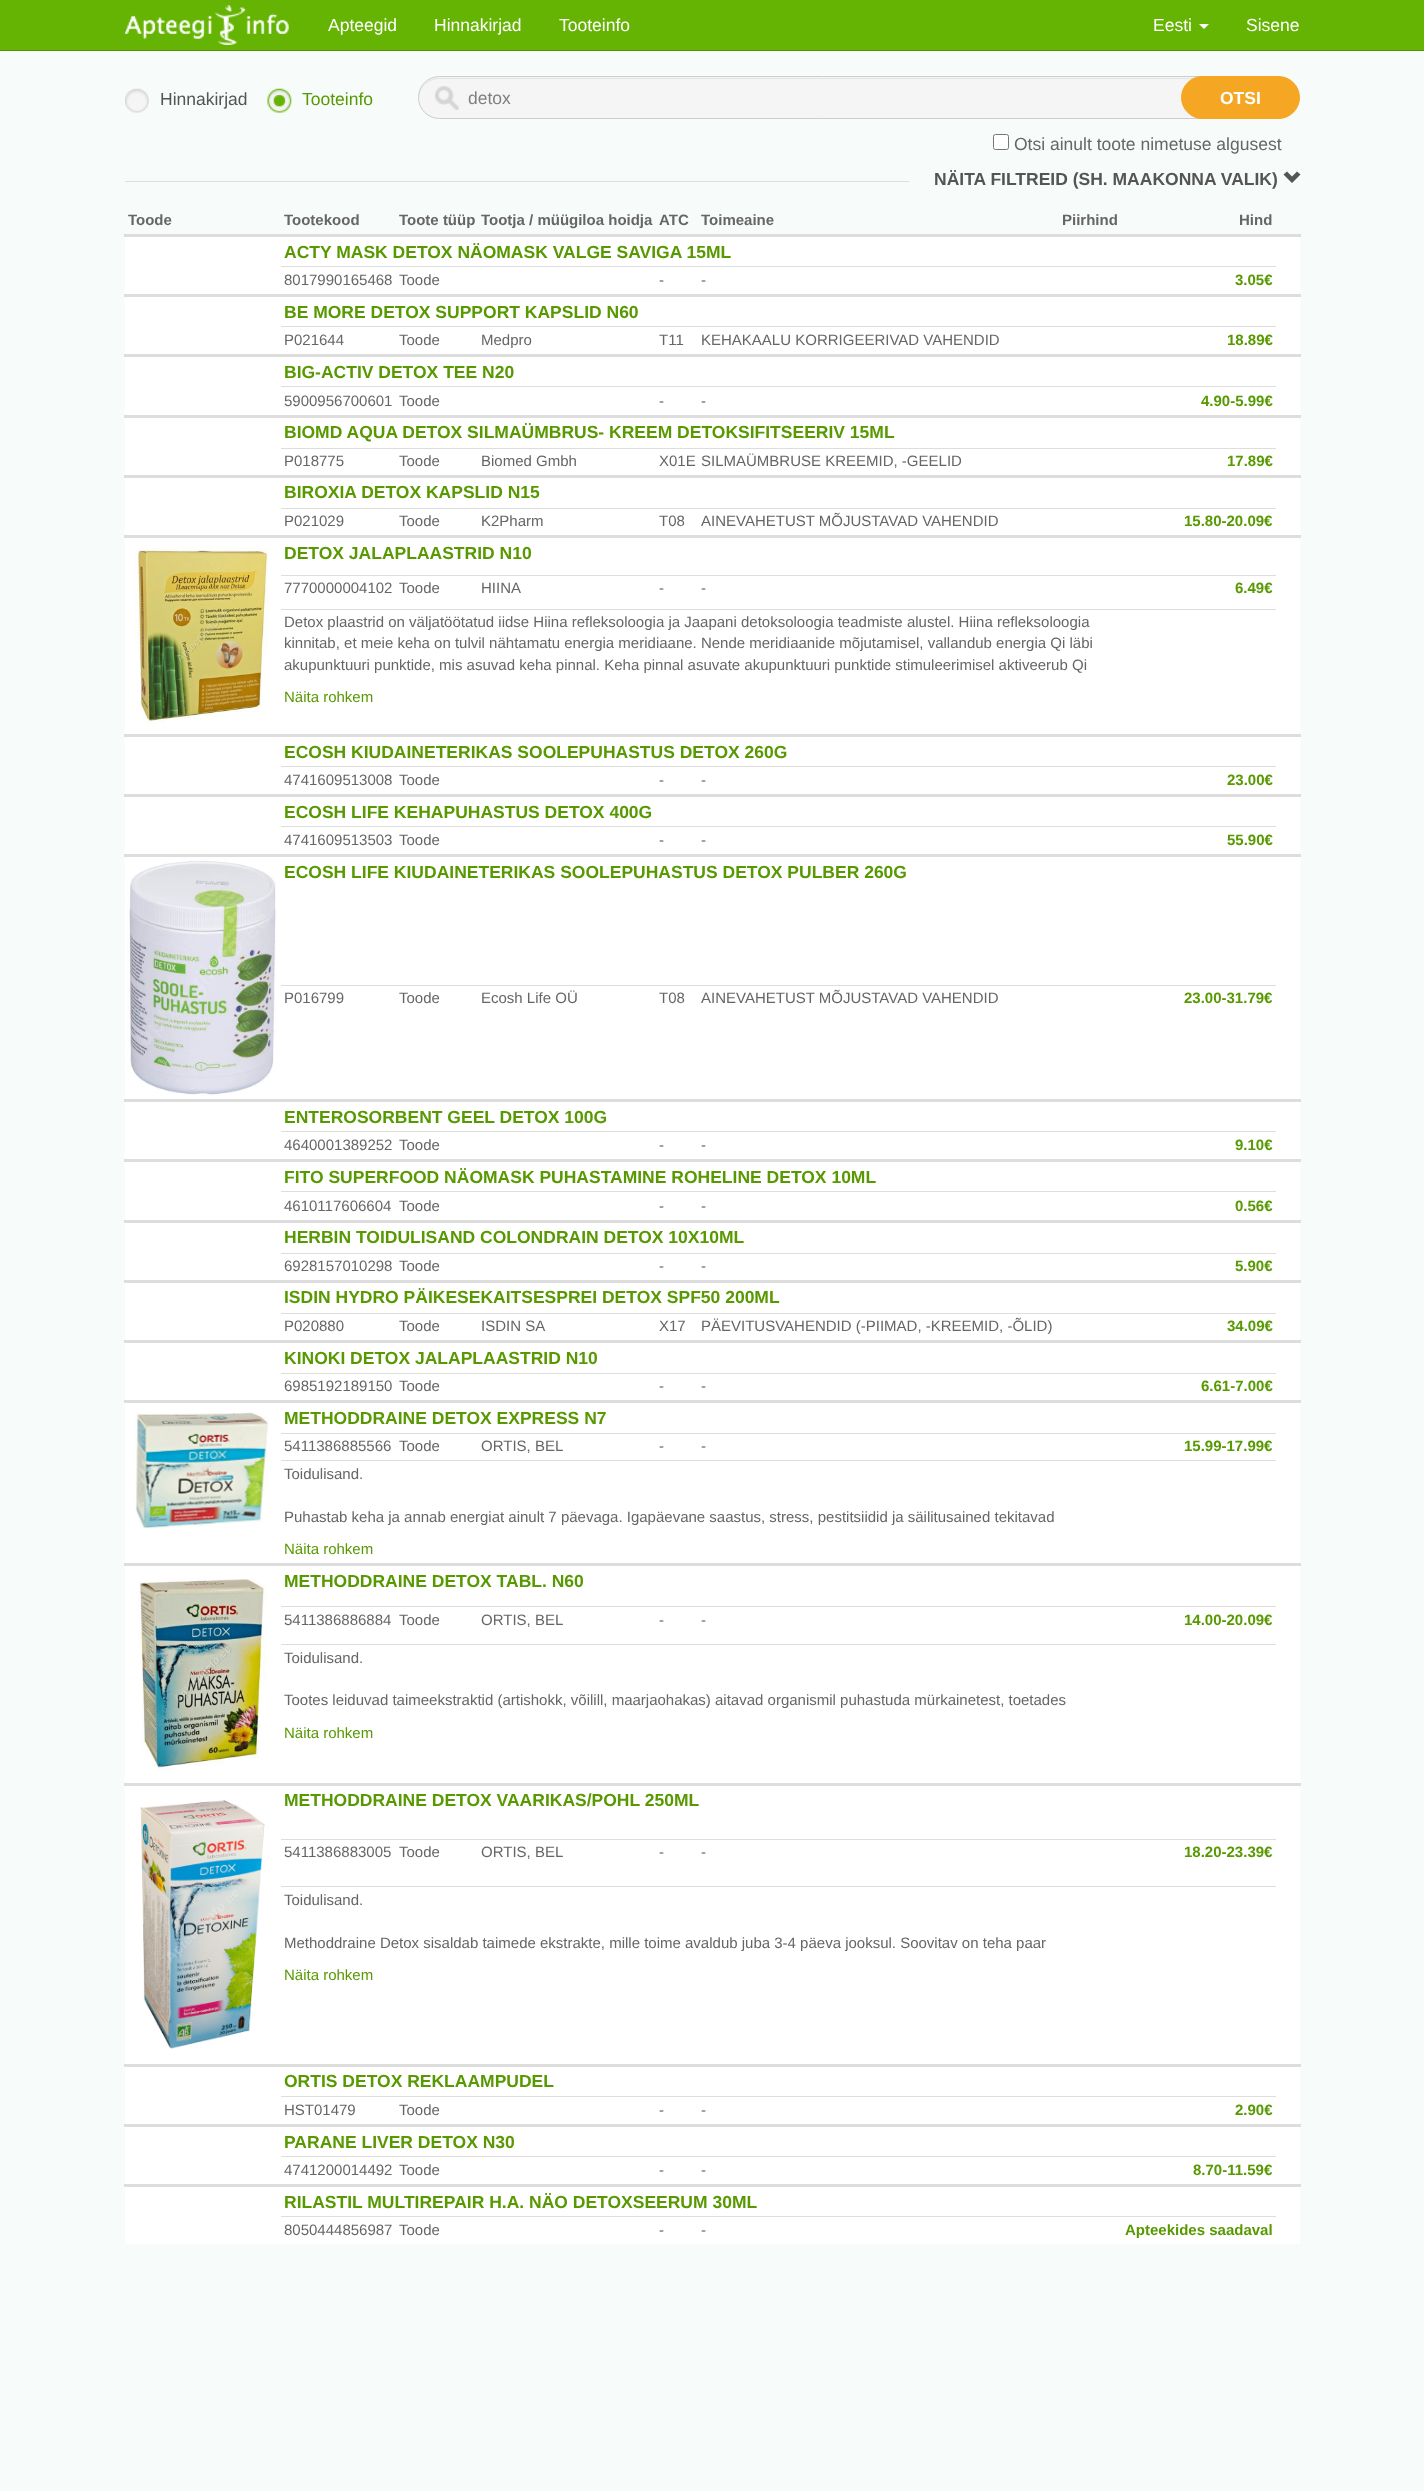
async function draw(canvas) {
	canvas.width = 1424;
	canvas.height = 2491;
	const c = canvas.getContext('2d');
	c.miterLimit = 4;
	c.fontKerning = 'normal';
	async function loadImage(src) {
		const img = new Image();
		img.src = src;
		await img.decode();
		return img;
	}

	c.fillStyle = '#f7fbfa';
	c.fillRect(0, 0, 1424, 2491);
	c.fillStyle = '#65b403';
	c.fillRect(0, 0, 1424, 50);
	c.fillStyle = '#539302';
	c.fillRect(0, 50, 1424, 1);
	c.drawImage(await loadImage('img1.png'), 125, 5, 164, 40);
	c.font = '17.5px Liberation Sans';
	c.fillStyle = '#fff';
	for (const [text, x, y] of [
		['Apteegid', 328, 31],
		['Hinnakirjad', 434, 31],
		['Tooteinfo', 559, 31],
		['Eesti', 1153, 31],
	]) {
		c.fillText(text, x, y);
	}
	c.beginPath();
	c.moveTo(1199, 24);
	c.lineTo(1209, 24);
	c.lineTo(1204, 29);
	c.closePath();
	c.fill();
	c.fillText('Sisene', 1246, 31);
	c.drawImage(await loadImage('img2.png'), 125, 88, 24, 25);
	c.fillStyle = '#555';
	c.fillText('Hinnakirjad', 160, 105);
	c.drawImage(await loadImage('img3.png'), 267, 88, 25, 25);
	c.fillStyle = '#589902';
	c.fillText('Tooteinfo', 302, 105);
	c.fillStyle = '#f5f5f5';
	c.beginPath();
	c.roundRect(418, 76, 790, 43, [21.5, 0, 0, 21.5]);
	c.fill();
	c.fillStyle = '#e3e3e3';
	c.beginPath();
	c.moveTo(439, 79);
	c.lineTo(1206, 79);
	c.lineTo(1206, 78);
	c.lineTo(439, 78);
	c.bezierCurveTo(428, 78, 419, 87, 419, 98);
	c.lineTo(419, 99);
	c.bezierCurveTo(419, 88, 428, 79, 439, 79);
	c.closePath();
	c.fill();
	c.beginPath();
	c.roundRect(418.5, 76.5, 789, 42, [21, 0, 0, 21]);
	c.strokeStyle = '#ccc';
	c.stroke();
	c.drawImage(await loadImage('img4.png'), 435, 86, 24, 24);
	c.fillStyle = '#808080';
	c.fillText('detox', 468, 104);
	c.fillStyle = '#f5a623';
	c.beginPath();
	c.roundRect(1181.5, 76.5, 118, 42, 21);
	c.fill();
	c.strokeStyle = '#f5a623';
	c.stroke();
	c.font = 'bold 17.5px Liberation Sans';
	c.fillStyle = '#fff';
	c.fillText('OTSI', 1220, 104);
	c.beginPath();
	c.roundRect(993.5, 134.5, 15, 15, 2);
	c.fill();
	c.strokeStyle = '#767676';
	c.stroke();
	c.font = '17.5px Liberation Sans';
	c.fillStyle = '#666';
	c.fillText('Otsi ainult toote nimetuse algusest', 1014, 150);
	c.fillStyle = '#dedede';
	c.fillRect(125, 181, 784, 1);
	c.font = 'bold 17.5px Liberation Sans';
	c.fillStyle = '#555';
	c.fillText('NÄITA FILTREID (SH. MAAKONNA VALIK)', 934, 185);
	c.beginPath();
	c.moveTo(1283.5, 174.5);
	c.lineTo(1292, 183);
	c.lineTo(1300.5, 174.5);
	c.lineTo(1297, 171.5);
	c.lineTo(1292, 176.5);
	c.lineTo(1287, 171.5);
	c.closePath();
	c.fill();
	c.font = 'bold 15px Liberation Sans';
	c.fillStyle = '#666';
	for (const [text, x, y] of [
		['Toode', 128, 225],
		['Tootekood', 284, 225],
		['Toote tüüp', 399, 225],
		['Tootja / müügiloa hoidja', 481, 225],
		['ATC', 659, 225],
		['Toimeaine', 701, 225],
		['Piirhind', 1062, 225],
		['Hind', 1239, 225],
	]) {
		c.fillText(text, x, y);
	}
	c.fillStyle = '#ddd';
	c.fillRect(124, 234, 1177, 3);
	c.fillStyle = '#fff';
	c.fillRect(125, 237, 1175, 57);
	c.font = 'bold 17.5px Liberation Sans';
	c.fillStyle = '#589902';
	c.fillText('ACTY MASK DETOX NÄOMASK VALGE SAVIGA 15ML', 284, 258);
	c.font = '15px Liberation Sans';
	c.fillStyle = '#666';
	for (const [text, x, y] of [
		['8017990165468', 284, 285],
		['Toode', 399, 285],
		['-', 659, 285],
		['-', 701, 285],
	]) {
		c.fillText(text, x, y);
	}
	c.fillStyle = '#ddd';
	c.fillRect(281, 266, 995, 1);
	c.font = 'bold 15px Liberation Sans';
	c.fillStyle = '#589902';
	c.fillText('3.05€', 1235, 285);
	c.fillStyle = '#fff';
	c.fillRect(125, 297, 1175, 57);
	c.fillStyle = '#ddd';
	c.fillRect(124, 294, 1177, 3);
	c.font = 'bold 17.5px Liberation Sans';
	c.fillStyle = '#589902';
	c.fillText('BE MORE DETOX SUPPORT KAPSLID N60', 284, 318);
	c.font = '15px Liberation Sans';
	c.fillStyle = '#666';
	for (const [text, x, y] of [
		['P021644', 284, 345],
		['Toode', 399, 345],
		['Medpro', 481, 345],
		['T11', 659, 345],
		['KEHAKAALU KORRIGEERIVAD VAHENDID', 701, 345],
	]) {
		c.fillText(text, x, y);
	}
	c.fillStyle = '#ddd';
	c.fillRect(281, 326, 995, 1);
	c.font = 'bold 15px Liberation Sans';
	c.fillStyle = '#589902';
	c.fillText('18.89€', 1227, 345);
	c.fillStyle = '#fff';
	c.fillRect(125, 357, 1175, 58);
	c.fillStyle = '#ddd';
	c.fillRect(124, 354, 1177, 3);
	c.font = 'bold 17.5px Liberation Sans';
	c.fillStyle = '#589902';
	c.fillText('BIG-ACTIV DETOX TEE N20', 284, 378);
	c.font = '15px Liberation Sans';
	c.fillStyle = '#666';
	for (const [text, x, y] of [
		['5900956700601', 284, 406],
		['Toode', 399, 406],
		['-', 659, 406],
		['-', 701, 406],
	]) {
		c.fillText(text, x, y);
	}
	c.fillStyle = '#ddd';
	c.fillRect(281, 386, 995, 1);
	c.font = 'bold 15px Liberation Sans';
	c.fillStyle = '#589902';
	c.fillText('4.90-5.99€', 1201, 406);
	c.fillStyle = '#fff';
	c.fillRect(125, 418, 1175, 57);
	c.fillStyle = '#ddd';
	c.fillRect(124, 415, 1177, 3);
	c.font = 'bold 17.5px Liberation Sans';
	c.fillStyle = '#589902';
	c.fillText('BIOMD AQUA DETOX SILMAÜMBRUS- KREEM DETOKSIFITSEERIV 15ML', 284, 438);
	c.font = '15px Liberation Sans';
	c.fillStyle = '#666';
	for (const [text, x, y] of [
		['P018775', 284, 466],
		['Toode', 399, 466],
		['Biomed Gmbh', 481, 466],
		['X01E', 659, 466],
		['SILMAÜMBRUSE KREEMID, -GEELID', 701, 466],
	]) {
		c.fillText(text, x, y);
	}
	c.fillStyle = '#ddd';
	c.fillRect(281, 448, 995, 1);
	c.font = 'bold 15px Liberation Sans';
	c.fillStyle = '#589902';
	c.fillText('17.89€', 1227, 466);
	c.fillStyle = '#fff';
	c.fillRect(125, 478, 1175, 57);
	c.fillStyle = '#ddd';
	c.fillRect(124, 475, 1177, 3);
	c.font = 'bold 17.5px Liberation Sans';
	c.fillStyle = '#589902';
	c.fillText('BIROXIA DETOX KAPSLID N15', 284, 498);
	c.font = '15px Liberation Sans';
	c.fillStyle = '#666';
	for (const [text, x, y] of [
		['P021029', 284, 526],
		['Toode', 399, 526],
		['K2Pharm', 481, 526],
		['T08', 659, 526],
		['AINEVAHETUST MÕJUSTAVAD VAHENDID', 701, 526],
	]) {
		c.fillText(text, x, y);
	}
	c.fillStyle = '#ddd';
	c.fillRect(281, 508, 995, 1);
	c.font = 'bold 15px Liberation Sans';
	c.fillStyle = '#589902';
	c.fillText('15.80-20.09€', 1184, 526);
	c.fillStyle = '#fff';
	c.fillRect(125, 538, 1175, 196);
	c.fillStyle = '#ddd';
	c.fillRect(124, 535, 1177, 3);
	c.drawImage(await loadImage('img5.png'), 134, 546, 134, 178);
	c.font = 'bold 17.5px Liberation Sans';
	c.fillStyle = '#589902';
	c.fillText('DETOX JALAPLAASTRID N10', 284, 559);
	c.font = '15px Liberation Sans';
	c.fillStyle = '#666';
	for (const [text, x, y] of [
		['7770000004102', 284, 593],
		['Toode', 399, 593],
		['HIINA', 481, 593],
		['-', 659, 593],
		['-', 701, 593],
	]) {
		c.fillText(text, x, y);
	}
	c.fillStyle = '#ddd';
	c.fillRect(281, 575, 995, 1);
	c.font = 'bold 15px Liberation Sans';
	c.fillStyle = '#589902';
	c.fillText('6.49€', 1235, 593);
	c.fillStyle = '#ddd';
	c.fillRect(281, 609, 995, 1);
	c.font = '15px Liberation Sans';
	c.fillStyle = '#666';
	for (const [text, x, y] of [
		['Detox plaastrid on väljatöötatud iidse Hiina refleksoloogia ja Jaapani detoksoloogia teadmiste alustel. Hiina refleksoloogia', 284, 627],
		['kinnitab, et meie keha on tulvil nähtamatu energia meridiaane. Nende meridiaanide mõjutamisel, vallandub energia Qi läbi', 284, 648],
		['akupunktuuri punktide, mis asuvad keha pinnal. Keha pinnal asuvate akupunktuuri punktide stimuleerimisel aktiveerub Qi', 284, 670],
	]) {
		c.fillText(text, x, y);
	}
	c.fillStyle = '#589902';
	c.fillText('Näita rohkem', 284, 702);
	c.fillStyle = '#fff';
	c.fillRect(125, 737, 1175, 57);
	c.fillStyle = '#ddd';
	c.fillRect(124, 734, 1177, 3);
	c.font = 'bold 17.5px Liberation Sans';
	c.fillStyle = '#589902';
	c.fillText('ECOSH KIUDAINETERIKAS SOOLEPUHASTUS DETOX 260G', 284, 758);
	c.font = '15px Liberation Sans';
	c.fillStyle = '#666';
	for (const [text, x, y] of [
		['4741609513008', 284, 785],
		['Toode', 399, 785],
		['-', 659, 785],
		['-', 701, 785],
	]) {
		c.fillText(text, x, y);
	}
	c.fillStyle = '#ddd';
	c.fillRect(281, 766, 995, 1);
	c.font = 'bold 15px Liberation Sans';
	c.fillStyle = '#589902';
	c.fillText('23.00€', 1227, 785);
	c.fillStyle = '#fff';
	c.fillRect(125, 797, 1175, 57);
	c.fillStyle = '#ddd';
	c.fillRect(124, 794, 1177, 3);
	c.font = 'bold 17.5px Liberation Sans';
	c.fillStyle = '#589902';
	c.fillText('ECOSH LIFE KEHAPUHASTUS DETOX 400G', 284, 818);
	c.font = '15px Liberation Sans';
	c.fillStyle = '#666';
	for (const [text, x, y] of [
		['4741609513503', 284, 845],
		['Toode', 399, 845],
		['-', 659, 845],
		['-', 701, 845],
	]) {
		c.fillText(text, x, y);
	}
	c.fillStyle = '#ddd';
	c.fillRect(281, 826, 995, 1);
	c.font = 'bold 15px Liberation Sans';
	c.fillStyle = '#589902';
	c.fillText('55.90€', 1227, 845);
	c.fillStyle = '#fff';
	c.fillRect(125, 857, 1175, 242);
	c.fillStyle = '#ddd';
	c.fillRect(124, 854, 1177, 3);
	c.drawImage(await loadImage('img6.png'), 127, 860, 149, 236);
	c.font = 'bold 17.5px Liberation Sans';
	c.fillStyle = '#589902';
	c.fillText('ECOSH LIFE KIUDAINETERIKAS SOOLEPUHASTUS DETOX PULBER 260G', 284, 878);
	c.font = '15px Liberation Sans';
	c.fillStyle = '#666';
	for (const [text, x, y] of [
		['P016799', 284, 1003],
		['Toode', 399, 1003],
		['Ecosh Life OÜ', 481, 1003],
		['T08', 659, 1003],
		['AINEVAHETUST MÕJUSTAVAD VAHENDID', 701, 1003],
	]) {
		c.fillText(text, x, y);
	}
	c.fillStyle = '#ddd';
	c.fillRect(281, 985, 995, 1);
	c.font = 'bold 15px Liberation Sans';
	c.fillStyle = '#589902';
	c.fillText('23.00-31.79€', 1184, 1003);
	c.fillStyle = '#fff';
	c.fillRect(125, 1102, 1175, 57);
	c.fillStyle = '#ddd';
	c.fillRect(124, 1099, 1177, 3);
	c.font = 'bold 17.5px Liberation Sans';
	c.fillStyle = '#589902';
	c.fillText('ENTEROSORBENT GEEL DETOX 100G', 284, 1123);
	c.font = '15px Liberation Sans';
	c.fillStyle = '#666';
	for (const [text, x, y] of [
		['4640001389252', 284, 1150],
		['Toode', 399, 1150],
		['-', 659, 1150],
		['-', 701, 1150],
	]) {
		c.fillText(text, x, y);
	}
	c.fillStyle = '#ddd';
	c.fillRect(281, 1131, 995, 1);
	c.font = 'bold 15px Liberation Sans';
	c.fillStyle = '#589902';
	c.fillText('9.10€', 1235, 1150);
	c.fillStyle = '#fff';
	c.fillRect(125, 1162, 1175, 58);
	c.fillStyle = '#ddd';
	c.fillRect(124, 1159, 1177, 3);
	c.font = 'bold 17.5px Liberation Sans';
	c.fillStyle = '#589902';
	c.fillText('FITO SUPERFOOD NÄOMASK PUHASTAMINE ROHELINE DETOX 10ML', 284, 1183);
	c.font = '15px Liberation Sans';
	c.fillStyle = '#666';
	for (const [text, x, y] of [
		['4610117606604', 284, 1211],
		['Toode', 399, 1211],
		['-', 659, 1211],
		['-', 701, 1211],
	]) {
		c.fillText(text, x, y);
	}
	c.fillStyle = '#ddd';
	c.fillRect(281, 1191, 995, 1);
	c.font = 'bold 15px Liberation Sans';
	c.fillStyle = '#589902';
	c.fillText('0.56€', 1235, 1211);
	c.fillStyle = '#fff';
	c.fillRect(125, 1223, 1175, 57);
	c.fillStyle = '#ddd';
	c.fillRect(124, 1220, 1177, 3);
	c.font = 'bold 17.5px Liberation Sans';
	c.fillStyle = '#589902';
	c.fillText('HERBIN TOIDULISAND COLONDRAIN DETOX 10X10ML', 284, 1243);
	c.font = '15px Liberation Sans';
	c.fillStyle = '#666';
	for (const [text, x, y] of [
		['6928157010298', 284, 1271],
		['Toode', 399, 1271],
		['-', 659, 1271],
		['-', 701, 1271],
	]) {
		c.fillText(text, x, y);
	}
	c.fillStyle = '#ddd';
	c.fillRect(281, 1253, 995, 1);
	c.font = 'bold 15px Liberation Sans';
	c.fillStyle = '#589902';
	c.fillText('5.90€', 1235, 1271);
	c.fillStyle = '#fff';
	c.fillRect(125, 1283, 1175, 57);
	c.fillStyle = '#ddd';
	c.fillRect(124, 1280, 1177, 3);
	c.font = 'bold 17.5px Liberation Sans';
	c.fillStyle = '#589902';
	c.fillText('ISDIN HYDRO PÄIKESEKAITSESPREI DETOX SPF50 200ML', 284, 1303);
	c.font = '15px Liberation Sans';
	c.fillStyle = '#666';
	for (const [text, x, y] of [
		['P020880', 284, 1331],
		['Toode', 399, 1331],
		['ISDIN SA', 481, 1331],
		['X17', 659, 1331],
		['PÄEVITUSVAHENDID (-PIIMAD, -KREEMID, -ÕLID)', 701, 1331],
	]) {
		c.fillText(text, x, y);
	}
	c.fillStyle = '#ddd';
	c.fillRect(281, 1313, 995, 1);
	c.font = 'bold 15px Liberation Sans';
	c.fillStyle = '#589902';
	c.fillText('34.09€', 1227, 1331);
	c.fillStyle = '#fff';
	c.fillRect(125, 1343, 1175, 57);
	c.fillStyle = '#ddd';
	c.fillRect(124, 1340, 1177, 3);
	c.font = 'bold 17.5px Liberation Sans';
	c.fillStyle = '#589902';
	c.fillText('KINOKI DETOX JALAPLAASTRID N10', 284, 1364);
	c.font = '15px Liberation Sans';
	c.fillStyle = '#666';
	for (const [text, x, y] of [
		['6985192189150', 284, 1391],
		['Toode', 399, 1391],
		['-', 659, 1391],
		['-', 701, 1391],
	]) {
		c.fillText(text, x, y);
	}
	c.fillStyle = '#ddd';
	c.fillRect(281, 1373, 995, 1);
	c.font = 'bold 15px Liberation Sans';
	c.fillStyle = '#589902';
	c.fillText('6.61-7.00€', 1201, 1391);
	c.fillStyle = '#fff';
	c.fillRect(125, 1403, 1175, 160);
	c.fillStyle = '#ddd';
	c.fillRect(124, 1400, 1177, 3);
	c.drawImage(await loadImage('img7.png'), 135, 1412, 134, 117);
	c.font = 'bold 17.5px Liberation Sans';
	c.fillStyle = '#589902';
	c.fillText('METHODDRAINE DETOX EXPRESS N7', 284, 1424);
	c.font = '15px Liberation Sans';
	c.fillStyle = '#666';
	for (const [text, x, y] of [
		['5411386885566', 284, 1451],
		['Toode', 399, 1451],
		['ORTIS, BEL', 481, 1451],
		['-', 659, 1451],
		['-', 701, 1451],
	]) {
		c.fillText(text, x, y);
	}
	c.fillStyle = '#ddd';
	c.fillRect(281, 1433, 995, 1);
	c.font = 'bold 15px Liberation Sans';
	c.fillStyle = '#589902';
	c.fillText('15.99-17.99€', 1184, 1451);
	c.fillStyle = '#ddd';
	c.fillRect(281, 1460, 995, 1);
	c.font = '15px Liberation Sans';
	c.fillStyle = '#666';
	c.fillText('Toidulisand.', 284, 1479);
	c.fillText('Puhastab keha ja annab energiat ainult 7 päevaga. Igapäevane saastus, stress, pestitsiidid ja säilitusained tekitavad', 284, 1522);
	c.fillStyle = '#589902';
	c.fillText('Näita rohkem', 284, 1554);
	c.fillStyle = '#fff';
	c.fillRect(125, 1566, 1175, 217);
	c.fillStyle = '#ddd';
	c.fillRect(124, 1563, 1177, 3);
	c.drawImage(await loadImage('img8.png'), 135, 1578, 132, 194);
	c.font = 'bold 17.5px Liberation Sans';
	c.fillStyle = '#589902';
	c.fillText('METHODDRAINE DETOX TABL. N60', 284, 1587);
	c.font = '15px Liberation Sans';
	c.fillStyle = '#666';
	for (const [text, x, y] of [
		['5411386886884', 284, 1625],
		['Toode', 399, 1625],
		['ORTIS, BEL', 481, 1625],
		['-', 659, 1625],
		['-', 701, 1625],
	]) {
		c.fillText(text, x, y);
	}
	c.fillStyle = '#ddd';
	c.fillRect(281, 1606, 995, 1);
	c.font = 'bold 15px Liberation Sans';
	c.fillStyle = '#589902';
	c.fillText('14.00-20.09€', 1184, 1625);
	c.fillStyle = '#ddd';
	c.fillRect(281, 1644, 995, 1);
	c.font = '15px Liberation Sans';
	c.fillStyle = '#666';
	c.fillText('Toidulisand.', 284, 1663);
	c.fillText('Tootes leiduvad taimeekstraktid (artishokk, võilill, maarjaohakas) aitavad organismil puhastuda mürkainetest, toetades', 284, 1705);
	c.fillStyle = '#589902';
	c.fillText('Näita rohkem', 284, 1738);
	c.fillStyle = '#fff';
	c.fillRect(125, 1786, 1175, 278);
	c.fillStyle = '#ddd';
	c.fillRect(124, 1783, 1177, 3);
	c.drawImage(await loadImage('img9.png'), 140, 1800, 125, 249);
	c.font = 'bold 17.5px Liberation Sans';
	c.fillStyle = '#589902';
	c.fillText('METHODDRAINE DETOX VAARIKAS/POHL 250ML', 284, 1806);
	c.font = '15px Liberation Sans';
	c.fillStyle = '#666';
	for (const [text, x, y] of [
		['5411386883005', 284, 1857],
		['Toode', 399, 1857],
		['ORTIS, BEL', 481, 1857],
		['-', 659, 1857],
		['-', 701, 1857],
	]) {
		c.fillText(text, x, y);
	}
	c.fillStyle = '#ddd';
	c.fillRect(281, 1839, 995, 1);
	c.font = 'bold 15px Liberation Sans';
	c.fillStyle = '#589902';
	c.fillText('18.20-23.39€', 1184, 1857);
	c.fillStyle = '#ddd';
	c.fillRect(281, 1886, 995, 1);
	c.font = '15px Liberation Sans';
	c.fillStyle = '#666';
	c.fillText('Toidulisand.', 284, 1905);
	c.fillText('Methoddraine Detox sisaldab taimede ekstrakte, mille toime avaldub juba 3-4 päeva jooksul. Soovitav on teha paar', 284, 1948);
	c.fillStyle = '#589902';
	c.fillText('Näita rohkem', 284, 1980);
	c.fillStyle = '#fff';
	c.fillRect(125, 2067, 1175, 57);
	c.fillStyle = '#ddd';
	c.fillRect(124, 2064, 1177, 3);
	c.font = 'bold 17.5px Liberation Sans';
	c.fillStyle = '#589902';
	c.fillText('ORTIS DETOX REKLAAMPUDEL', 284, 2087);
	c.font = '15px Liberation Sans';
	c.fillStyle = '#666';
	for (const [text, x, y] of [
		['HST01479', 284, 2115],
		['Toode', 399, 2115],
		['-', 659, 2115],
		['-', 701, 2115],
	]) {
		c.fillText(text, x, y);
	}
	c.fillStyle = '#ddd';
	c.fillRect(281, 2096, 995, 1);
	c.font = 'bold 15px Liberation Sans';
	c.fillStyle = '#589902';
	c.fillText('2.90€', 1235, 2115);
	c.fillStyle = '#fff';
	c.fillRect(125, 2127, 1175, 57);
	c.fillStyle = '#ddd';
	c.fillRect(124, 2124, 1177, 3);
	c.font = 'bold 17.5px Liberation Sans';
	c.fillStyle = '#589902';
	c.fillText('PARANE LIVER DETOX N30', 284, 2148);
	c.font = '15px Liberation Sans';
	c.fillStyle = '#666';
	for (const [text, x, y] of [
		['4741200014492', 284, 2175],
		['Toode', 399, 2175],
		['-', 659, 2175],
		['-', 701, 2175],
	]) {
		c.fillText(text, x, y);
	}
	c.fillStyle = '#ddd';
	c.fillRect(281, 2156, 995, 1);
	c.font = 'bold 15px Liberation Sans';
	c.fillStyle = '#589902';
	c.fillText('8.70-11.59€', 1193, 2175);
	c.fillStyle = '#fff';
	c.fillRect(125, 2187, 1175, 57);
	c.fillStyle = '#ddd';
	c.fillRect(124, 2184, 1177, 3);
	c.font = 'bold 17.5px Liberation Sans';
	c.fillStyle = '#589902';
	c.fillText('RILASTIL MULTIREPAIR H.A. NÄO DETOXSEERUM 30ML', 284, 2208);
	c.font = '15px Liberation Sans';
	c.fillStyle = '#666';
	for (const [text, x, y] of [
		['8050444856987', 284, 2235],
		['Toode', 399, 2235],
		['-', 659, 2235],
		['-', 701, 2235],
	]) {
		c.fillText(text, x, y);
	}
	c.fillStyle = '#ddd';
	c.fillRect(281, 2216, 995, 1);
	c.font = 'bold 15px Liberation Sans';
	c.fillStyle = '#589902';
	c.fillText('Apteekides saadaval', 1125, 2235);
}

draw(document.querySelector('canvas'));
